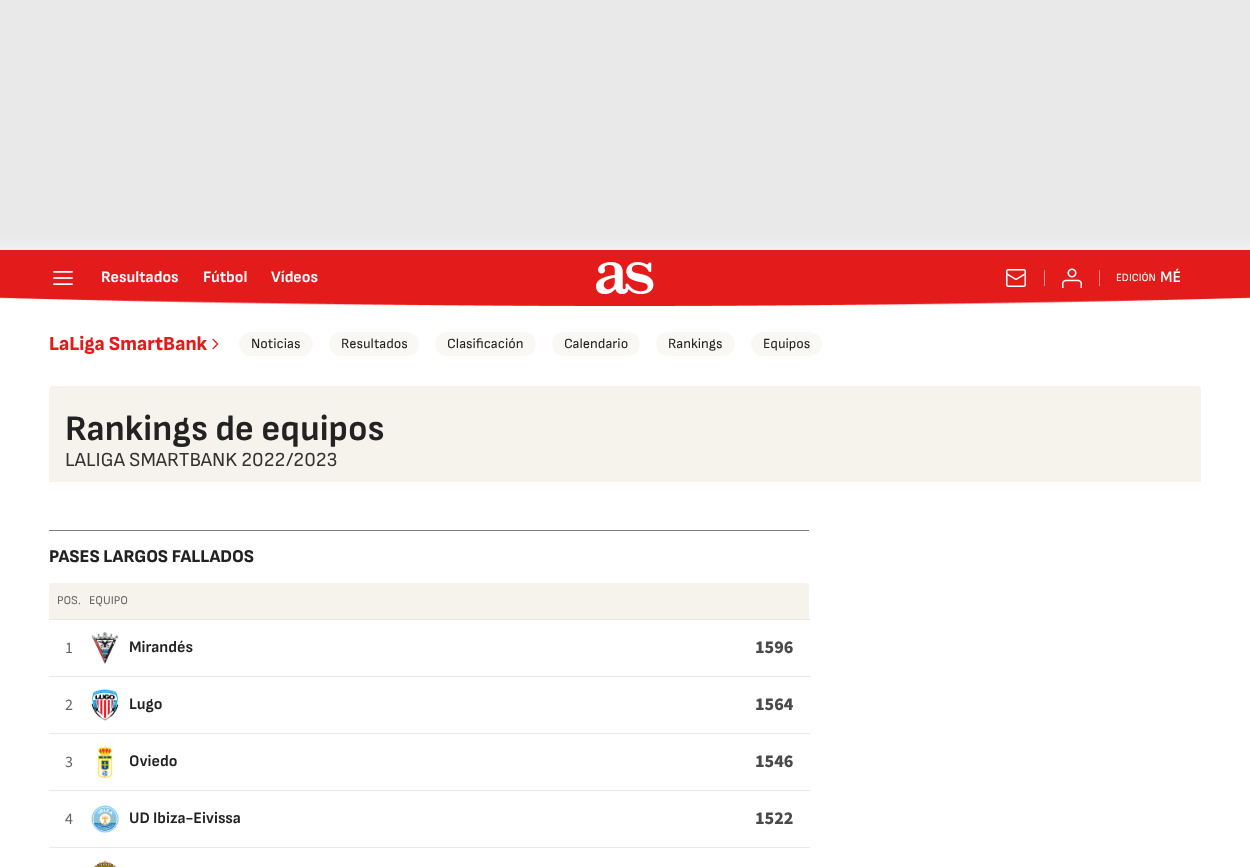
async function draw(canvas) {
	canvas.width = 1250;
	canvas.height = 867;
	const c = canvas.getContext('2d');
	c.miterLimit = 4;
	c.fontKerning = 'normal';
	async function loadImage(src) {
		const img = new Image();
		img.src = src;
		await img.decode();
		return img;
	}
	let gradient;

	c.fillStyle = '#fff';
	c.fillRect(0, 0, 1250, 867);
	gradient = c.createLinearGradient(625, 250, 625, 0);
	gradient.addColorStop(0, '#f0f0f0');
	gradient.addColorStop(0.06, '#e9e9e9');
	c.fillStyle = gradient;
	c.fillRect(0, 0, 1250, 250);
	c.drawImage(await loadImage('img1.png'), 0, 250, 1250, 56);
	c.drawImage(await loadImage('img2.png'), 53, 271, 20, 14);
	c.font = 'bold 16px Sofia Sans';
	c.fillStyle = '#fff';
	for (const [text, x, y] of [
		['Resultados', 101, 282],
		['Fútbol', 203, 282],
		['Vídeos', 271, 282],
	]) {
		c.fillText(text, x, y);
	}
	c.drawImage(await loadImage('img3.png'), 596, 262, 58, 32);
	c.drawImage(await loadImage('img4.png'), 1006, 269, 20, 18);
	c.fillStyle = '#f28d8d';
	c.fillRect(1044, 270, 1, 16);
	c.drawImage(await loadImage('img5.png'), 1062, 268, 20, 20);
	c.fillRect(1099, 270, 1, 16);
	c.font = '11px Sofia Sans';
	c.fillStyle = '#fff';
	c.fillText('EDICIÓN', 1116, 281);
	c.font = '600 16px Sofia Sans';
	c.fillText('MÉ', 1160, 282);
	c.drawImage(await loadImage('img6.png'), 212, 338, 7, 12);
	c.font = '800 20px Sofia Sans';
	c.fillStyle = '#e41b1b';
	c.fillText('LaLiga SmartBank', 49, 350);
	c.fillStyle = '#faf8f4';
	c.beginPath();
	c.roundRect(239, 332, 74, 24, 12);
	c.fill();
	c.font = '14px Sofia Sans';
	c.fillStyle = '#222';
	c.fillText('Noticias', 251, 348);
	c.fillStyle = '#faf8f4';
	c.beginPath();
	c.roundRect(329, 332, 90, 24, 12);
	c.fill();
	c.fillStyle = '#222';
	c.fillText('Resultados', 341, 348);
	c.fillStyle = '#faf8f4';
	c.beginPath();
	c.roundRect(435, 332, 101, 24, 12);
	c.fill();
	c.fillStyle = '#222';
	c.fillText('Clasificación', 447, 348);
	c.fillStyle = '#faf8f4';
	c.beginPath();
	c.roundRect(552, 332, 88, 24, 12);
	c.fill();
	c.fillStyle = '#222';
	c.fillText('Calendario', 564, 348);
	c.fillStyle = '#faf8f4';
	c.beginPath();
	c.roundRect(656, 332, 79, 24, 12);
	c.fill();
	c.fillStyle = '#222';
	c.fillText('Rankings', 668, 348);
	c.fillStyle = '#faf8f4';
	c.beginPath();
	c.roundRect(751, 332, 71, 24, 12);
	c.fill();
	c.fillStyle = '#222';
	c.fillText('Equipos', 763, 348);
	c.fillStyle = '#f6f3ec';
	c.beginPath();
	c.roundRect(49, 386, 1152, 96, [4, 4, 0, 0]);
	c.fill();
	c.font = 'bold 36px Sofia Sans';
	c.fillStyle = '#222';
	c.fillText('Rankings de equipos', 65, 440);
	c.font = '20px Sofia Sans';
	c.fillStyle = '#323232';
	c.fillText('LALIGA SMARTBANK 2022/2023', 65, 466);
	c.fillStyle = '#808080';
	c.fillRect(49, 530, 760, 1);
	c.font = '800 18px Sofia Sans';
	c.fillStyle = '#222';
	c.fillText('PASES LARGOS FALLADOS', 49, 562);
	c.fillStyle = '#f6f3ec';
	c.beginPath();
	c.roundRect(49, 583, 760, 37, [4, 4, 0, 4]);
	c.fill();
	c.font = '12px Sofia Sans';
	c.fillStyle = '#656565';
	c.fillText('POS.', 57, 604);
	c.fillText('EQUIPO', 89, 604);
	c.fillStyle = '#e9e9e9';
	c.fillRect(49, 619, 761, 1);
	c.font = '200 16px "Source Sans 3"';
	c.fillStyle = '#656565';
	c.fillText('1', 65, 653);
	c.drawImage(await loadImage('img7.png'), 91, 632, 28, 32);
	c.font = 'bold 16px Sofia Sans';
	c.fillStyle = '#222';
	c.fillText('Mirandés', 129, 652);
	c.fillStyle = '#e9e9e9';
	c.fillRect(49, 676, 761, 1);
	c.font = '200 18px "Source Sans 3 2"';
	c.fillStyle = '#4a4a4a';
	c.fillText('1596', 755, 653);
	c.font = '200 16px "Source Sans 3"';
	c.fillStyle = '#656565';
	c.fillText('2', 65, 710);
	c.drawImage(await loadImage('img8.png'), 91, 689, 28, 32);
	c.font = 'bold 16px Sofia Sans';
	c.fillStyle = '#222';
	c.fillText('Lugo', 129, 709);
	c.fillStyle = '#e9e9e9';
	c.fillRect(49, 733, 761, 1);
	c.font = '200 18px "Source Sans 3 2"';
	c.fillStyle = '#4a4a4a';
	c.fillText('1564', 755, 710);
	c.font = '200 16px "Source Sans 3"';
	c.fillStyle = '#656565';
	c.fillText('3', 65, 767);
	c.drawImage(await loadImage('img9.png'), 97, 746, 16, 32);
	c.font = 'bold 16px Sofia Sans';
	c.fillStyle = '#222';
	c.fillText('Oviedo', 129, 766);
	c.fillStyle = '#e9e9e9';
	c.fillRect(49, 790, 761, 1);
	c.font = '200 18px "Source Sans 3 2"';
	c.fillStyle = '#4a4a4a';
	c.fillText('1546', 755, 767);
	c.font = '200 16px "Source Sans 3"';
	c.fillStyle = '#656565';
	c.fillText('4', 65, 824);
	c.drawImage(await loadImage('img10.png'), 91, 805, 28, 28);
	c.font = 'bold 16px Sofia Sans';
	c.fillStyle = '#222';
	c.fillText('UD Ibiza-Eivissa', 129, 823);
	c.fillStyle = '#e9e9e9';
	c.fillRect(49, 847, 761, 1);
	c.font = '200 18px "Source Sans 3 2"';
	c.fillStyle = '#4a4a4a';
	c.fillText('1522', 755, 824);
	c.drawImage(await loadImage('img11.png'), 94, 860, 22, 7);
}

draw(document.querySelector('canvas'));
